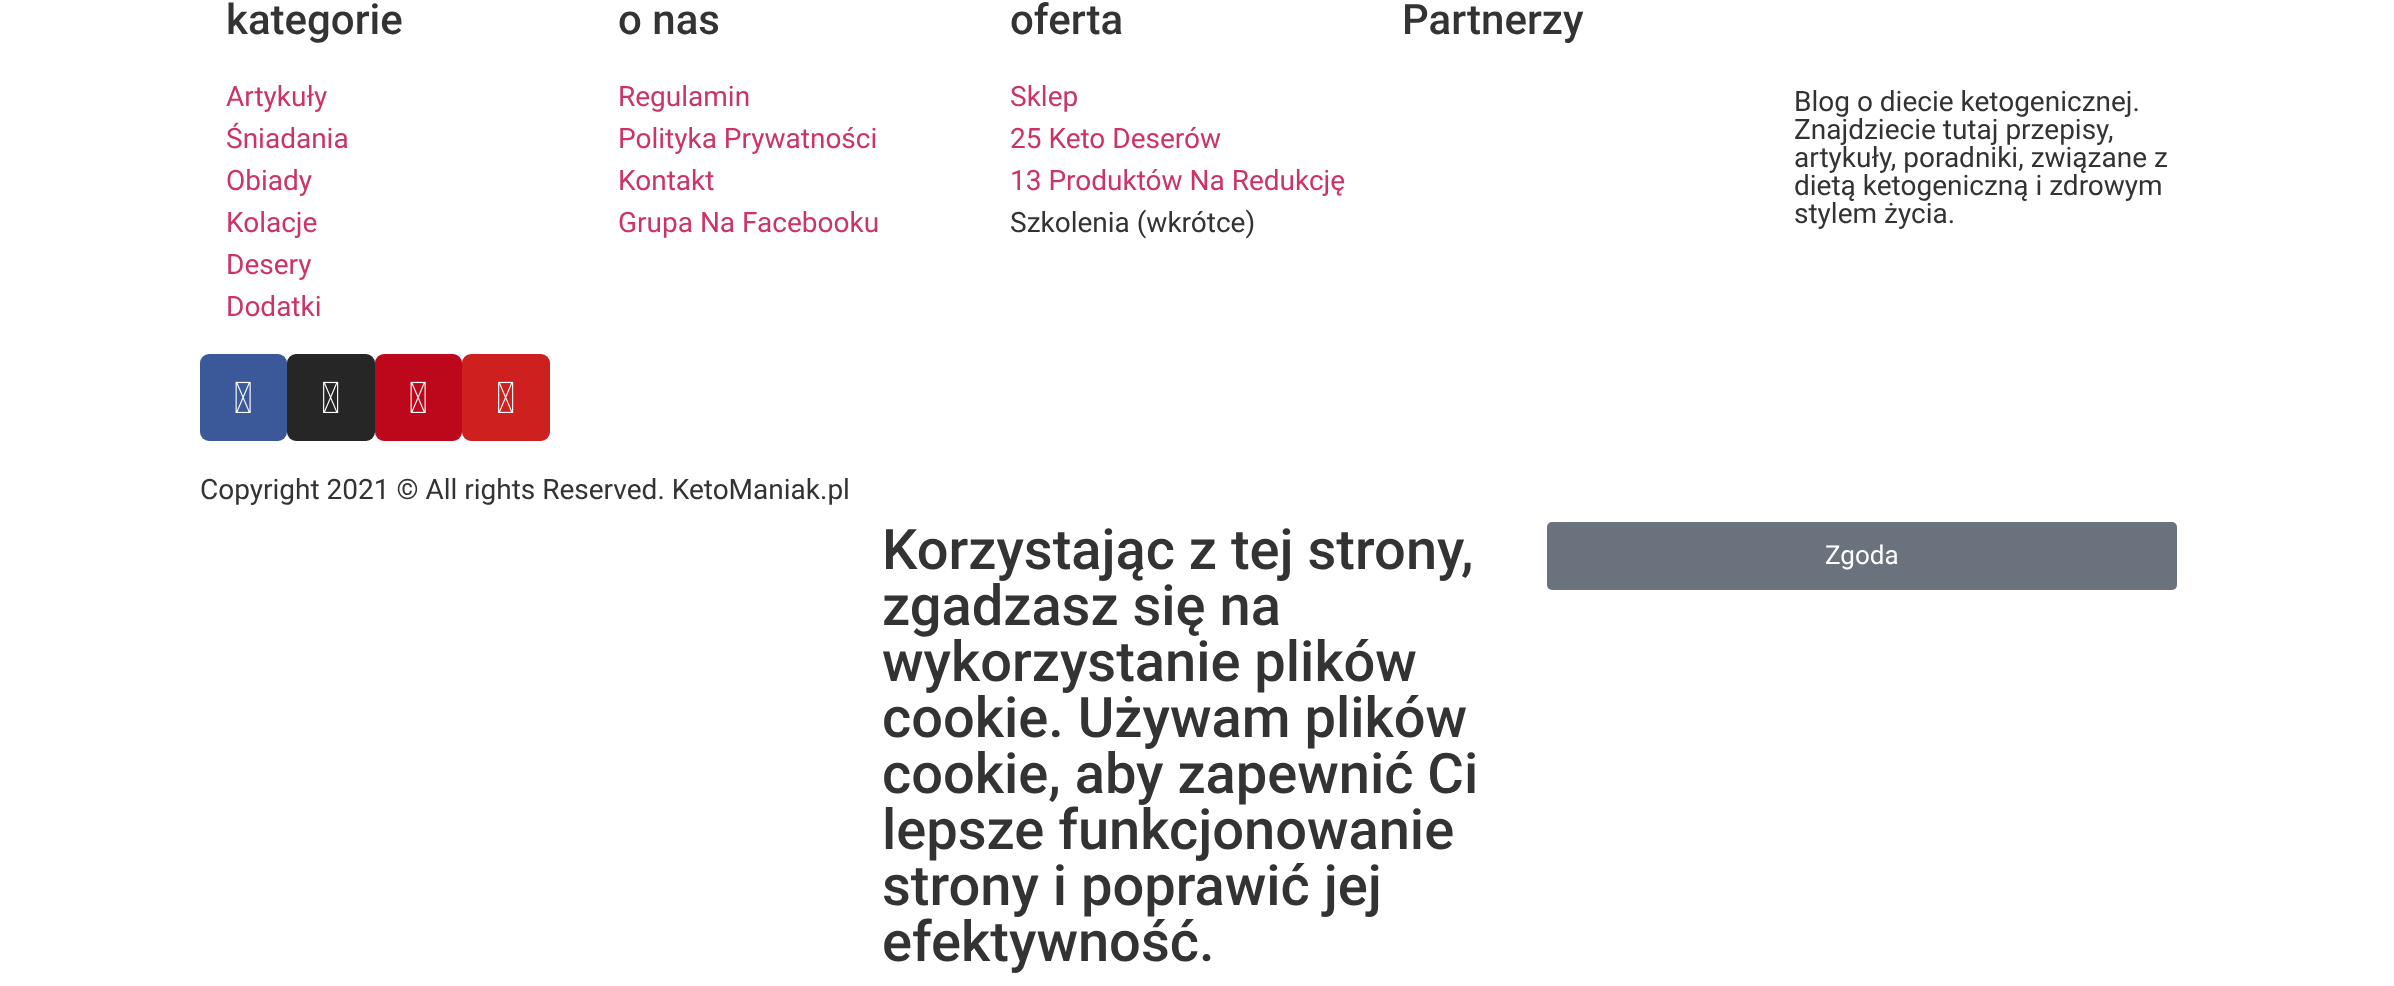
async function draw(canvas) {
	canvas.width = 2394;
	canvas.height = 986;
	const c = canvas.getContext('2d');
	c.miterLimit = 4;
	c.fontKerning = 'normal';
	async function loadImage(src) {
		const img = new Image();
		img.src = src;
		await img.decode();
		return img;
	}

	c.fillStyle = '#fff';
	c.fillRect(0, 0, 2394, 986);
	c.font = '500 42px Roboto';
	c.fillStyle = '#333';
	c.fillText('kategorie', 226, 34);
	c.font = '28px Roboto';
	c.fillStyle = '#c36';
	for (const [text, x, y] of [
		['Artykuły', 226, 106],
		['Śniadania', 226, 148],
		['Obiady', 226, 190],
		['Kolacje', 226, 232],
		['Desery', 226, 274],
		['Dodatki', 226, 316],
	]) {
		c.fillText(text, x, y);
	}
	c.font = '500 42px Roboto';
	c.fillStyle = '#333';
	c.fillText('o nas', 618, 34);
	c.font = '28px Roboto';
	c.fillStyle = '#c36';
	for (const [text, x, y] of [
		['Regulamin', 618, 106],
		['Polityka Prywatności', 618, 148],
		['Kontakt', 618, 190],
		['Grupa Na Facebooku', 618, 232],
	]) {
		c.fillText(text, x, y);
	}
	c.font = '500 42px Roboto';
	c.fillStyle = '#333';
	c.fillText('oferta', 1010, 34);
	c.font = '28px Roboto';
	c.fillStyle = '#c36';
	for (const [text, x, y] of [
		['Sklep', 1010, 106],
		['25 Keto Deserów', 1010, 148],
		['13 Produktów Na Redukcję', 1010, 190],
	]) {
		c.fillText(text, x, y);
	}
	c.fillStyle = '#333';
	c.fillText('Szkolenia (wkrótce)', 1010, 232);
	c.font = '500 42px Roboto';
	c.fillText('Partnerzy', 1402, 34);
	c.font = '28px Roboto';
	for (const [text, x, y] of [
		['Blog o diecie ketogenicznej.', 1794, 111],
		['Znajdziecie tutaj przepisy,', 1794, 139],
		['artykuły, poradniki, związane z', 1794, 167],
		['dietą ketogeniczną i zdrowym', 1794, 195],
		['stylem życia.', 1794, 223],
	]) {
		c.fillText(text, x, y);
	}
	c.fillStyle = '#3b5998';
	c.beginPath();
	c.roundRect(200, 354, 87, 87, 9);
	c.fill();
	c.drawImage(await loadImage('img1.png'), 235, 381, 16, 32);
	c.fillStyle = '#262626';
	c.beginPath();
	c.roundRect(287, 354, 88, 87, 9);
	c.fill();
	c.drawImage(await loadImage('img2.png'), 323, 381, 16, 32);
	c.fillStyle = '#bd081c';
	c.beginPath();
	c.roundRect(375, 354, 87, 87, 9);
	c.fill();
	c.drawImage(await loadImage('img3.png'), 410, 381, 16, 32);
	c.fillStyle = '#cd201f';
	c.beginPath();
	c.roundRect(462, 354, 88, 87, 9);
	c.fill();
	c.drawImage(await loadImage('img4.png'), 498, 381, 16, 32);
	c.fillStyle = '#333';
	c.fillText('Copyright 2021 © All rights Reserved. KetoManiak.pl', 200, 499);
	c.font = '500 56px Roboto';
	for (const [text, x, y] of [
		['Korzystając z tej strony,', 882, 569],
		['zgadzasz się na', 882, 625],
		['wykorzystanie plików', 882, 681],
		['cookie. Używam plików', 882, 737],
		['cookie, aby zapewnić Ci', 882, 793],
		['lepsze funkcjonowanie', 882, 849],
		['strony i poprawić jej', 882, 905],
		['efektywność.', 882, 961],
	]) {
		c.fillText(text, x, y);
	}
	c.fillStyle = '#69727d';
	c.beginPath();
	c.roundRect(1547, 522, 630, 68, 5);
	c.fill();
	c.font = '26px Roboto';
	c.fillStyle = '#fff';
	c.fillText('Zgoda', 1825, 564);
}

draw(document.querySelector('canvas'));
